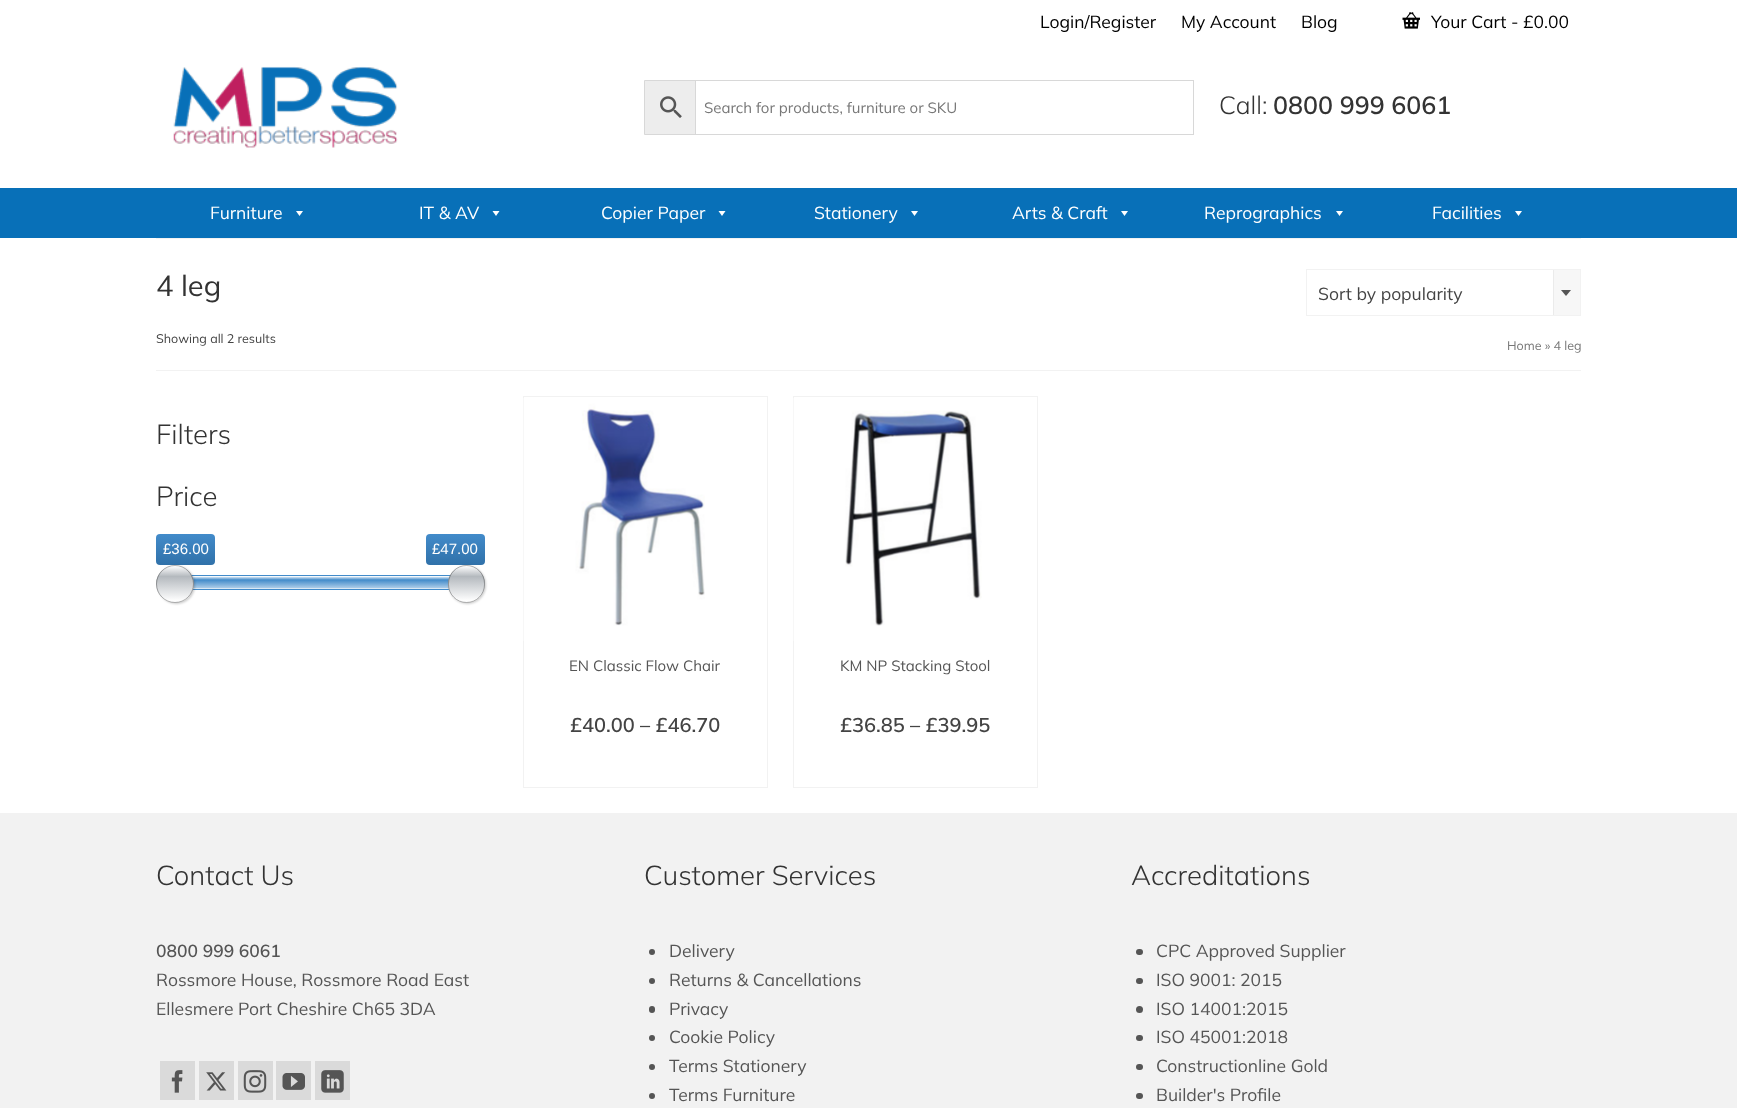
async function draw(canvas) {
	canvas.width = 1737;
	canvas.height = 1108;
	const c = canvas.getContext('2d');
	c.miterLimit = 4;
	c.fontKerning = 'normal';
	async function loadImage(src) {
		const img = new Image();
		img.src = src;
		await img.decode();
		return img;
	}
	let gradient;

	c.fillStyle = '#fff';
	c.fillRect(0, 0, 1737, 1108);
	c.font = '17.5px Mulish';
	c.fillStyle = '#000';
	for (const [text, x, y] of [
		['Login/Register', 1040, 28],
		['My Account', 1181, 28],
		['Blog', 1301, 28],
	]) {
		c.fillText(text, x, y);
	}
	c.drawImage(await loadImage('img1.png'), 1402, 12, 18, 17);
	c.fillText('Your Cart - £0.00', 1431, 28);
	c.drawImage(await loadImage('img2.png'), 173, 66, 225, 82);
	c.fillStyle = '#ededed';
	c.beginPath();
	c.rect(644.5, 80.5, 51, 54);
	c.fill();
	c.strokeStyle = '#d8d8d8';
	c.stroke();
	c.drawImage(await loadImage('img3.png'), 660, 96, 22, 22);
	c.strokeRect(695.5, 80.5, 498, 54);
	c.font = '15px Mulish';
	c.fillStyle = '#777';
	c.fillText('Search for products, furniture or SKU', 704, 113);
	c.font = '300 25px Mulish';
	c.fillStyle = '#333';
	c.fillText('Call:', 1219, 114);
	c.font = '600 25px Mulish';
	c.fillText('0800 999 6061', 1273, 114);
	c.fillStyle = '#0870b8';
	c.fillRect(0, 188, 1737, 50);
	c.font = '17.5px Mulish';
	c.fillStyle = '#fff';
	c.fillText('Furniture', 210, 219);
	c.beginPath();
	c.moveTo(303, 211);
	c.lineTo(299.5, 216);
	c.lineTo(296, 211);
	c.closePath();
	c.fill();
	c.fillText('IT & AV', 419, 219);
	c.beginPath();
	c.moveTo(499.5, 211);
	c.lineTo(496, 216);
	c.lineTo(492.5, 211);
	c.closePath();
	c.fill();
	c.fillText('Copier Paper', 601, 219);
	c.beginPath();
	c.moveTo(725.5, 211);
	c.lineTo(722, 216);
	c.lineTo(718.5, 211);
	c.closePath();
	c.fill();
	c.fillText('Stationery', 814, 219);
	c.beginPath();
	c.moveTo(918, 211);
	c.lineTo(914.5, 216);
	c.lineTo(911, 211);
	c.closePath();
	c.fill();
	c.fillText('Arts & Craft', 1012, 219);
	c.beginPath();
	c.moveTo(1128, 211);
	c.lineTo(1124.5, 216);
	c.lineTo(1121, 211);
	c.closePath();
	c.fill();
	c.fillText('Reprographics', 1204, 219);
	c.beginPath();
	c.moveTo(1343, 211);
	c.lineTo(1339.5, 216);
	c.lineTo(1336, 211);
	c.closePath();
	c.fill();
	c.fillText('Facilities', 1432, 219);
	c.beginPath();
	c.moveTo(1522, 211);
	c.lineTo(1518.5, 216);
	c.lineTo(1515, 211);
	c.closePath();
	c.fill();
	c.fillStyle = '#f2f2f2';
	c.fillRect(156, 238, 1425, 1);
	c.fillRect(156, 370, 1425, 1);
	c.font = '29px Mulish';
	c.fillStyle = '#333';
	c.fillText('4 leg', 156, 296);
	c.font = '12.5px Mulish';
	c.fillStyle = '#444';
	c.fillText('Showing all 2 results', 156, 343);
	c.strokeStyle = '#f2f2f2';
	c.strokeRect(1306.5, 269.5, 274, 46);
	c.font = '17.5px Mulish';
	c.fillText('Sort by popularity', 1318, 300);
	c.fillStyle = '#f7f7f7';
	c.fillRect(1554, 270, 26, 45);
	c.fillStyle = '#ebebeb';
	c.fillRect(1553, 270, 1, 45);
	c.fillStyle = '#555';
	c.beginPath();
	c.moveTo(1561, 290);
	c.lineTo(1571, 290);
	c.lineTo(1566, 296);
	c.closePath();
	c.fill();
	c.font = '12.5px Mulish';
	c.fillStyle = '#777';
	c.fillText('Home » 4 leg', 1507, 350);
	c.font = '300 27.5px Mulish';
	c.fillStyle = '#333';
	c.fillText('Filters', 156, 444);
	c.fillText('Price', 156, 506);
	gradient = c.createLinearGradient(186, 534, 186, 565);
	gradient.addColorStop(0, '#428bca');
	gradient.addColorStop(1, '#3071a9');
	c.fillStyle = gradient;
	c.beginPath();
	c.roundRect(156, 534, 59, 31, 4);
	c.fill();
	c.font = '15px Liberation Sans';
	c.fillStyle = '#fff';
	c.fillText('£36.00', 163, 554);
	gradient = c.createLinearGradient(456, 534, 456, 565);
	gradient.addColorStop(0, '#428bca');
	gradient.addColorStop(1, '#3071a9');
	c.fillStyle = gradient;
	c.beginPath();
	c.roundRect(426, 534, 59, 31, 4);
	c.fill();
	c.fillStyle = '#fff';
	c.fillText('£47.00', 432, 554);
	c.beginPath();
	c.roundRect(156.5, 575.5, 328, 14, 7);
	c.strokeStyle = '#ccc';
	c.stroke();
	gradient = c.createLinearGradient(321, 576, 321, 589);
	gradient.addColorStop(0, '#fff');
	gradient.addColorStop(0.3, '#428bca');
	gradient.addColorStop(1, '#b9d4ec');
	c.fillStyle = gradient;
	c.fillRect(192, 576, 258, 13);
	c.strokeStyle = '#ffffff80';
	c.strokeRect(176.5, 576.5, 288, 12);
	c.strokeStyle = '#428bca';
	c.strokeRect(175.5, 575.5, 290, 14);
	c.fillStyle = '#00000033';
	c.filter = 'blur(1px)';
	c.beginPath();
	c.roundRect(158, 566, 37, 38, 18.5);
	c.fill();
	c.filter = 'none';
	c.save();
	c.beginPath();
	c.roundRect(156, 565, 38, 38, 19);
	c.clip();
	gradient = c.createLinearGradient(175, 531, 175, 566);
	gradient.addColorStop(0, '#fff');
	gradient.addColorStop(0.3, '#b4b9be');
	gradient.addColorStop(1, '#fff');
	c.fillStyle = gradient;
	c.fillRect(169, 565, 12, 1);
	gradient = c.createLinearGradient(175, 566, 175, 601);
	gradient.addColorStop(0, '#fff');
	gradient.addColorStop(0.3, '#b4b9be');
	gradient.addColorStop(1, '#fff');
	c.fillStyle = gradient;
	c.fillRect(156, 566, 38, 35);
	gradient = c.createLinearGradient(175, 601, 175, 636);
	gradient.addColorStop(0, '#fff');
	gradient.addColorStop(0.3, '#b4b9be');
	gradient.addColorStop(1, '#fff');
	c.fillStyle = gradient;
	c.fillRect(166, 601, 18, 2);
	c.restore();
	c.beginPath();
	c.arc(175, 584, 18.5, 0, 2 * Math.PI);
	c.strokeStyle = '#0000004d';
	c.stroke();
	c.filter = 'blur(1px)';
	c.beginPath();
	c.roundRect(449, 566, 37, 38, 18.5);
	c.fill();
	c.filter = 'none';
	c.save();
	c.beginPath();
	c.roundRect(448, 565, 37, 38, 18.5);
	c.clip();
	gradient = c.createLinearGradient(466, 531, 466, 566);
	gradient.addColorStop(0, '#fff');
	gradient.addColorStop(0.3, '#b4b9be');
	gradient.addColorStop(1, '#fff');
	c.fillStyle = gradient;
	c.fillRect(460, 565, 13, 1);
	gradient = c.createLinearGradient(466, 566, 466, 601);
	gradient.addColorStop(0, '#fff');
	gradient.addColorStop(0.3, '#b4b9be');
	gradient.addColorStop(1, '#fff');
	c.fillStyle = gradient;
	c.fillRect(448, 566, 37, 35);
	gradient = c.createLinearGradient(466, 601, 466, 636);
	gradient.addColorStop(0, '#fff');
	gradient.addColorStop(0.3, '#b4b9be');
	gradient.addColorStop(1, '#fff');
	c.fillStyle = gradient;
	c.fillRect(458, 601, 17, 2);
	c.restore();
	c.beginPath();
	c.roundRect(448.5, 565.5, 36, 37, 18);
	c.stroke();
	c.strokeStyle = '#f2f2f2';
	c.strokeRect(523.5, 396.5, 244, 391);
	c.drawImage(await loadImage('img4.png'), 523, 398, 182, 243);
	c.font = '15px Mulish';
	c.fillStyle = '#555';
	c.fillText('EN Classic Flow Chair', 569, 671);
	c.font = '600 20px Mulish';
	c.fillStyle = '#444';
	c.fillText('£40.00 – £46.70', 570, 732);
	c.strokeRect(793.5, 396.5, 244, 391);
	c.drawImage(await loadImage('img5.png'), 793, 398, 189, 243);
	c.font = '15px Mulish';
	c.fillStyle = '#555';
	c.fillText('KM NP Stacking Stool', 840, 671);
	c.font = '600 20px Mulish';
	c.fillStyle = '#444';
	c.fillText('£36.85 – £39.95', 840, 732);
	c.fillStyle = '#f2f2f2';
	c.fillRect(0, 813, 1737, 295);
	c.font = '300 27.5px Mulish';
	c.fillStyle = '#333';
	c.fillText('Contact Us', 156, 885);
	c.font = '600 17.5px Mulish';
	c.fillStyle = '#555';
	c.fillText('0800 999 6061', 156, 957);
	c.font = '17.5px Mulish';
	c.fillText('Rossmore House, Rossmore Road East', 156, 986);
	c.fillText('Ellesmere Port Cheshire Ch65 3DA', 156, 1015);
	c.fillStyle = '#dadada';
	c.fillRect(160, 1061, 35, 39);
	c.drawImage(await loadImage('img6.png'), 171, 1070, 12, 23);
	c.fillRect(199, 1061, 35, 39);
	c.drawImage(await loadImage('img7.png'), 206, 1072, 21, 19);
	c.fillRect(238, 1061, 35, 39);
	c.drawImage(await loadImage('img8.png'), 243, 1070, 24, 23);
	c.fillRect(276, 1061, 35, 39);
	c.drawImage(await loadImage('img9.png'), 282, 1073, 23, 17);
	c.fillRect(315, 1061, 35, 39);
	c.drawImage(await loadImage('img10.png'), 321, 1070, 23, 23);
	c.font = '300 27.5px Mulish';
	c.fillStyle = '#333';
	c.fillText('Customer Services', 644, 885);
	c.fillStyle = '#555';
	c.beginPath();
	c.arc(652, 952, 3, 0, 2 * Math.PI);
	c.fill();
	c.font = '17.5px Mulish';
	c.fillText('Delivery', 669, 957);
	c.beginPath();
	c.arc(652, 981, 3, 0, 2 * Math.PI);
	c.fill();
	c.fillText('Returns & Cancellations', 669, 986);
	c.beginPath();
	c.roundRect(649, 1006, 6, 7, 3);
	c.fill();
	c.fillText('Privacy', 669, 1015);
	c.beginPath();
	c.arc(652, 1038, 3, 0, 2 * Math.PI);
	c.fill();
	c.fillText('Cookie Policy', 669, 1043);
	c.beginPath();
	c.arc(652, 1067, 3, 0, 2 * Math.PI);
	c.fill();
	c.fillText('Terms Stationery', 669, 1072);
	c.beginPath();
	c.arc(652, 1096, 3, 0, 2 * Math.PI);
	c.fill();
	c.fillText('Terms Furniture', 669, 1101);
	c.font = '300 27.5px Mulish';
	c.fillStyle = '#333';
	c.fillText('Accreditations', 1131, 885);
	c.fillStyle = '#555';
	c.beginPath();
	c.roundRect(1136, 949, 7, 6, 3);
	c.fill();
	c.font = '17.5px Mulish';
	c.fillText('CPC Approved Supplier', 1156, 957);
	c.beginPath();
	c.roundRect(1136, 978, 7, 6, 3);
	c.fill();
	c.fillText('ISO 9001: 2015', 1156, 986);
	c.beginPath();
	c.arc(1139.5, 1009.5, 3.5, 0, 2 * Math.PI);
	c.fill();
	c.fillText('ISO 14001:2015', 1156, 1015);
	c.beginPath();
	c.roundRect(1136, 1035, 7, 6, 3);
	c.fill();
	c.fillText('ISO 45001:2018', 1156, 1043);
	c.beginPath();
	c.roundRect(1136, 1064, 7, 6, 3);
	c.fill();
	c.fillText('Constructionline Gold', 1156, 1072);
	c.beginPath();
	c.roundRect(1136, 1093, 7, 6, 3);
	c.fill();
	c.fillText('Builder\'s Profile', 1156, 1101);
}

draw(document.querySelector('canvas'));
